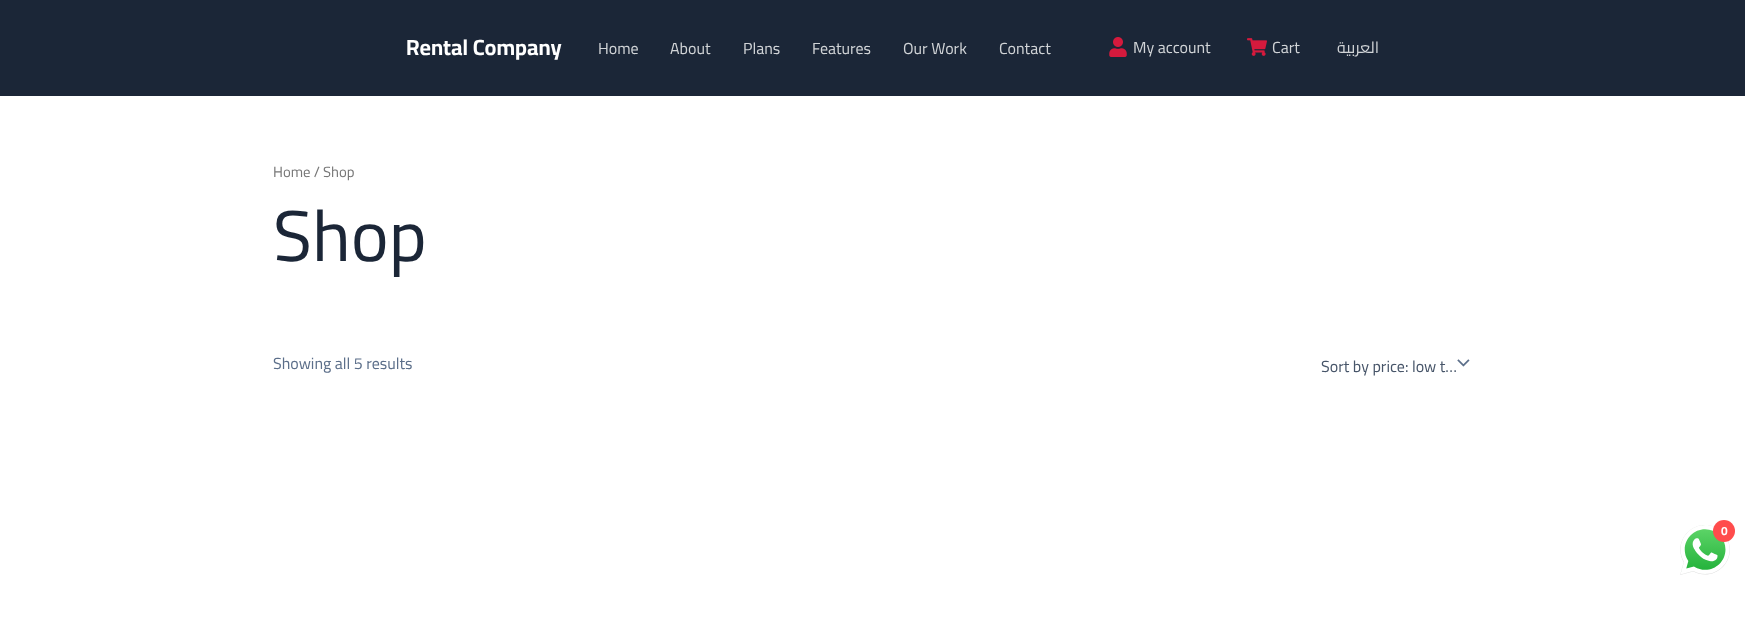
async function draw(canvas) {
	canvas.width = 1745;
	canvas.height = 635;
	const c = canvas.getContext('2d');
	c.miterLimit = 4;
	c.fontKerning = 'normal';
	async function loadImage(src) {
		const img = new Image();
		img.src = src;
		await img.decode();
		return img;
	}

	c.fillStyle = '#fff';
	c.fillRect(0, 0, 1745, 635);
	c.fillStyle = '#1b2637';
	c.fillRect(0, 0, 1745, 96);
	c.font = 'bold 22px Cairo';
	c.fillStyle = '#fff';
	c.fillText('Rental Company', 406, 55);
	c.font = '16px Cairo';
	c.fillStyle = '#d1d4d7';
	for (const [text, x, y] of [
		['Home', 598, 54],
		['About', 670, 54],
		['Plans', 743, 54],
		['Features', 812, 54],
		['Our Work', 903, 54],
		['Contact', 999, 54],
	]) {
		c.fillText(text, x, y);
	}
	c.drawImage(await loadImage('img1.png'), 1109, 37, 18, 20);
	c.fillText('My account', 1133, 53);
	c.drawImage(await loadImage('img2.png'), 1247, 38, 20, 18);
	c.fillText('Cart', 1272, 53);
	c.direction = 'rtl';
	c.fillText('العربية', 1379, 53);
	c.direction = 'ltr';
	c.font = '14.75px Cairo';
	c.fillStyle = '#777';
	c.fillText('Home / Shop', 273, 177);
	c.font = '72px Cairo';
	c.fillStyle = '#1b2637';
	c.fillText('Shop', 273, 261);
	c.font = '16px Cairo';
	c.fillStyle = '#5c6f8a';
	c.fillText('Showing all 5 results', 273, 369);
	c.drawImage(await loadImage('img3.png'), 1457, 359, 13, 8);
	c.fillStyle = '#475569';
	c.fillText('Sort by price: low t…', 1321, 372);
	c.drawImage(await loadImage('img4.png'), 1680, 525, 50, 50);
	c.fillStyle = '#ff4c4c';
	c.beginPath();
	c.arc(1724, 531, 11, 0, 2 * Math.PI);
	c.fill();
	c.font = 'bold 12px Cairo';
	c.fillStyle = '#fff';
	c.fillText('0', 1721, 535);
}

draw(document.querySelector('canvas'));
